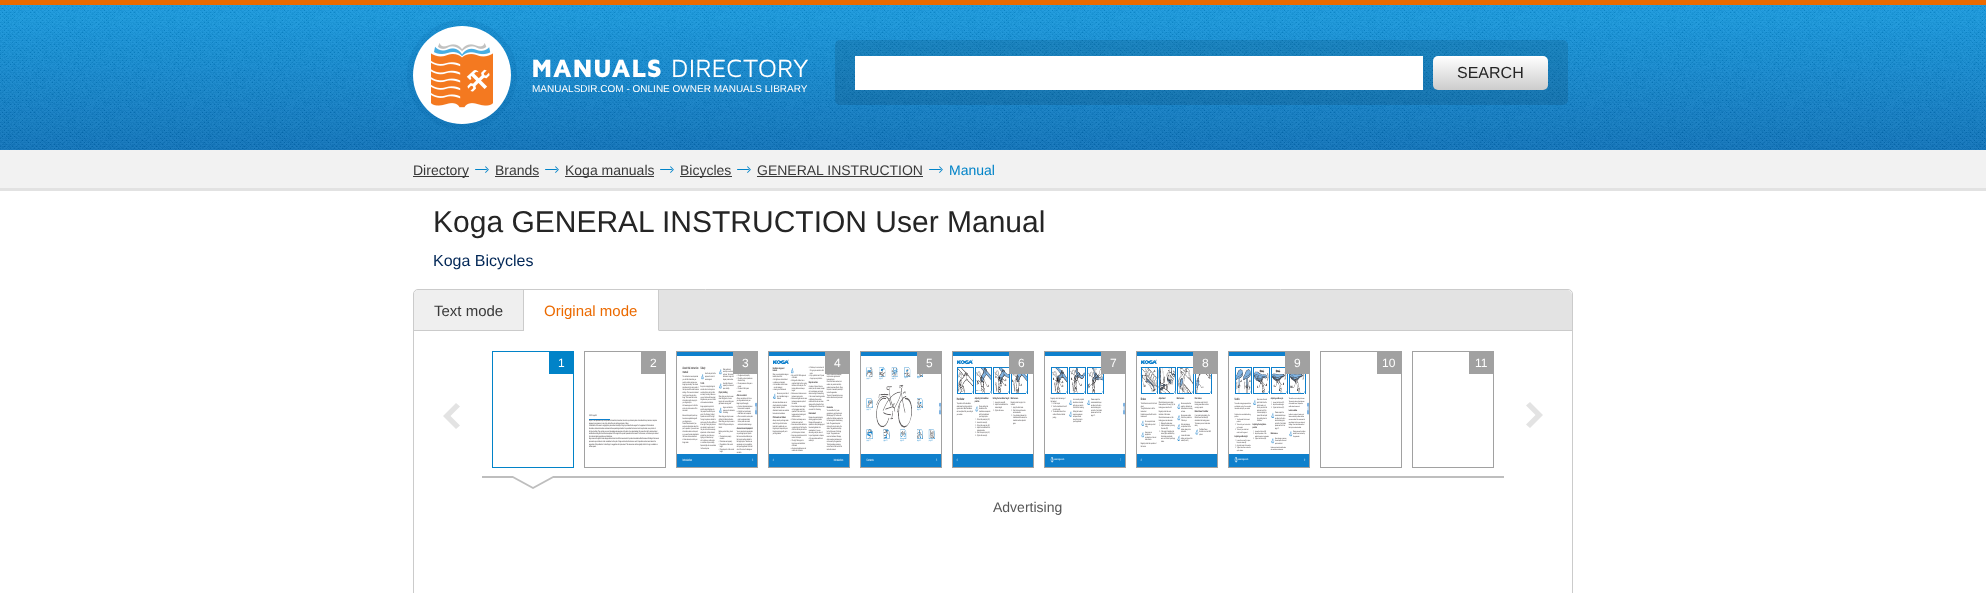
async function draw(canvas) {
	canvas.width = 1986;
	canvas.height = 593;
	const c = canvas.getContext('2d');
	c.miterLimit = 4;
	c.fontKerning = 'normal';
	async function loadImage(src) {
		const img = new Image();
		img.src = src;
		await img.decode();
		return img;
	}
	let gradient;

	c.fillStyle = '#fff';
	c.fillRect(0, 0, 1986, 593);
	gradient = c.createLinearGradient(993, 5, 993, 150);
	gradient.addColorStop(0, '#0e96de');
	gradient.addColorStop(1, '#046db7');
	c.fillStyle = gradient;
	c.fillRect(0, 5, 1986, 145);
	c.fillStyle = '#eb6a00';
	c.fillRect(0, 0, 1986, 5);
	c.drawImage(await loadImage('img1.png'), 0, 5, 1986, 145);
	c.fillStyle = '#fff';
	c.beginPath();
	c.arc(462, 75, 49, 0, 2 * Math.PI);
	c.fill();
	c.beginPath();
	c.arc(462, 75, 52, 0, 2 * Math.PI);
	c.strokeStyle = '#005a9924';
	c.lineWidth = 6;
	c.stroke();
	c.drawImage(await loadImage('img2.png'), 431, 43, 62, 65);
	c.letterSpacing = '0.25px';
	c.font = '900 26px Maven Pro';
	c.fillText('MANUALS', 531, 77);
	c.font = '26px Maven Pro';
	c.fillText('DIRECTORY', 671, 77);
	c.letterSpacing = '0px';
	c.font = '10px Liberation Sans';
	c.fillText('MANUALSDIR.COM - ONLINE OWNER MANUALS LIBRARY', 532, 92);
	c.fillStyle = '#0000001a';
	c.beginPath();
	c.roundRect(835, 40, 733, 65, 5);
	c.fill();
	c.fillStyle = '#fff';
	c.fillRect(855, 56, 568, 34);
	gradient = c.createLinearGradient(1491, 90, 1491, 56);
	gradient.addColorStop(0, '#ccc');
	gradient.addColorStop(1, '#fff');
	c.fillStyle = gradient;
	c.beginPath();
	c.roundRect(1433, 56, 115, 34, 5);
	c.fill();
	c.font = '16px Liberation Sans';
	c.fillStyle = '#252525';
	c.fillText('SEARCH', 1457, 78);
	for (const [x, y, w, h, color] of [
		[0, 150, 1986, 38, '#f2f2f2'],
		[0, 188, 1986, 3, '#e2e2e2'],
		[413, 176, 56, 1, '#393939'],
	]) {
		c.fillStyle = color;
		c.fillRect(x, y, w, h);
	}
	c.font = '14px Liberation Sans';
	c.fillText('Directory', 413, 175);
	c.drawImage(await loadImage('img3.png'), 475, 166, 14, 7);
	c.fillText('Brands', 495, 175);
	c.fillRect(495, 176, 44, 1);
	c.drawImage(await loadImage('img3.png'), 545, 166, 14, 7);
	c.fillRect(565, 176, 89, 1);
	c.fillText('Koga manuals', 565, 175);
	c.drawImage(await loadImage('img3.png'), 660, 166, 14, 7);
	c.fillRect(680, 176, 52, 1);
	c.fillText('Bicycles', 680, 175);
	c.drawImage(await loadImage('img3.png'), 737, 166, 14, 7);
	c.fillText('GENERAL INSTRUCTION', 757, 175);
	c.fillRect(757, 176, 166, 1);
	c.drawImage(await loadImage('img3.png'), 929, 166, 14, 7);
	c.fillStyle = '#0183c8';
	c.fillText('Manual', 949, 175);
	c.font = '30px Liberation Sans';
	c.fillStyle = '#252525';
	c.fillText('Koga GENERAL INSTRUCTION User Manual', 433, 232);
	c.font = '16px Liberation Sans';
	c.fillStyle = '#002656';
	c.fillText('Koga Bicycles', 433, 266);
	c.beginPath();
	c.roundRect(413.5, 289.5, 1159, 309, 4.5);
	c.strokeStyle = '#cbcbcb';
	c.lineWidth = 1;
	c.stroke();
	c.fillStyle = '#e3e3e3';
	c.beginPath();
	c.roundRect(414, 290, 1158, 41, [5, 5, 0, 0]);
	c.fill();
	c.fillStyle = '#cbcbcb';
	c.fillRect(659, 330, 913, 1);
	c.fillStyle = '#efefef';
	c.beginPath();
	c.roundRect(414, 290, 110, 41, [5, 0, 0, 0]);
	c.fill();
	c.fillStyle = '#cbcbcb';
	c.fillRect(523, 290, 1, 41);
	c.fillRect(414, 330, 110, 1);
	c.font = '15px Liberation Sans';
	c.fillStyle = '#393939';
	c.fillText('Text mode', 434, 316);
	c.fillStyle = '#fff';
	c.fillRect(524, 290, 135, 41);
	c.fillStyle = '#cbcbcb';
	c.beginPath();
	c.moveTo(659, 290);
	c.lineTo(659, 331);
	c.lineTo(658, 330);
	c.lineTo(658, 290);
	c.closePath();
	c.fill();
	c.fillStyle = '#eb6a00';
	c.fillText('Original mode', 544, 316);
	c.strokeStyle = '#0183c8';
	c.strokeRect(492.5, 351.5, 81, 116);
	c.fillStyle = '#0183c8';
	c.fillRect(549, 352, 24, 22);
	c.font = '12px Liberation Sans';
	c.fillStyle = '#fff';
	c.fillText('1', 558, 367);
	c.fillStyle = '#bebebe';
	c.fillRect(482, 476, 1022, 2);
	c.beginPath();
	c.moveTo(511, 477);
	c.lineTo(555, 477);
	c.lineTo(533, 489);
	c.closePath();
	c.fill();
	c.fillStyle = '#fff';
	c.beginPath();
	c.moveTo(511, 475);
	c.lineTo(555, 475);
	c.lineTo(533, 487);
	c.closePath();
	c.fill();
	c.strokeStyle = '#a1a1a1';
	c.strokeRect(584.5, 351.5, 81, 116);
	c.fillStyle = '#a1a1a1';
	c.fillRect(641, 352, 24, 22);
	c.fillStyle = '#fff';
	c.fillText('2', 650, 367);
	c.drawImage(await loadImage('img4.png'), 589, 414, 70, 34);
	c.strokeRect(676.5, 351.5, 81, 116);
	c.drawImage(await loadImage('img5.png'), 677, 352, 80, 115);
	c.fillStyle = '#a1a1a1';
	c.fillRect(733, 352, 24, 22);
	c.fillStyle = '#fff';
	c.fillText('3', 742, 367);
	c.strokeRect(768.5, 351.5, 81, 116);
	c.drawImage(await loadImage('img6.png'), 769, 352, 80, 115);
	c.fillStyle = '#a1a1a1';
	c.fillRect(825, 352, 24, 22);
	c.fillStyle = '#fff';
	c.fillText('4', 834, 367);
	c.strokeRect(860.5, 351.5, 81, 116);
	c.drawImage(await loadImage('img7.png'), 861, 352, 80, 115);
	c.fillStyle = '#a1a1a1';
	c.fillRect(917, 352, 24, 22);
	c.fillStyle = '#fff';
	c.fillText('5', 926, 367);
	c.strokeRect(952.5, 351.5, 81, 116);
	c.drawImage(await loadImage('img8.png'), 953, 352, 80, 115);
	c.fillStyle = '#a1a1a1';
	c.fillRect(1009, 352, 24, 22);
	c.fillStyle = '#fff';
	c.fillText('6', 1018, 367);
	c.strokeRect(1044.5, 351.5, 81, 116);
	c.drawImage(await loadImage('img9.png'), 1045, 352, 80, 115);
	c.fillStyle = '#a1a1a1';
	c.fillRect(1101, 352, 24, 22);
	c.fillStyle = '#fff';
	c.fillText('7', 1110, 367);
	c.strokeRect(1136.5, 351.5, 81, 116);
	c.drawImage(await loadImage('img10.png'), 1137, 352, 80, 115);
	c.fillStyle = '#a1a1a1';
	c.fillRect(1193, 352, 24, 22);
	c.fillStyle = '#fff';
	c.fillText('8', 1202, 367);
	c.strokeRect(1228.5, 351.5, 81, 116);
	c.drawImage(await loadImage('img11.png'), 1229, 352, 80, 115);
	c.fillStyle = '#a1a1a1';
	c.fillRect(1285, 352, 24, 22);
	c.fillStyle = '#fff';
	c.fillText('9', 1294, 367);
	c.strokeRect(1320.5, 351.5, 81, 116);
	c.fillStyle = '#a1a1a1';
	c.fillRect(1377, 352, 24, 22);
	c.fillStyle = '#fff';
	c.fillText('10', 1382, 367);
	c.strokeRect(1412.5, 351.5, 81, 116);
	c.fillStyle = '#a1a1a1';
	c.fillRect(1469, 352, 24, 22);
	c.fillStyle = '#fff';
	c.fillText('11', 1475, 367);
	c.fillStyle = '#e3e3e3';
	c.beginPath();
	c.moveTo(456, 429);
	c.lineTo(443, 416);
	c.lineTo(456, 403);
	c.lineTo(460, 406.5);
	c.lineTo(450.5, 416);
	c.lineTo(460, 425.5);
	c.closePath();
	c.fill();
	c.beginPath();
	c.moveTo(1530, 402);
	c.lineTo(1543, 415);
	c.lineTo(1530, 428);
	c.lineTo(1526, 424.5);
	c.lineTo(1535.5, 415);
	c.lineTo(1526, 405.5);
	c.closePath();
	c.fill();
	c.font = '14px Liberation Sans';
	c.fillStyle = '#575757';
	c.fillText('Advertising', 993, 512);
}

draw(document.querySelector('canvas'));
